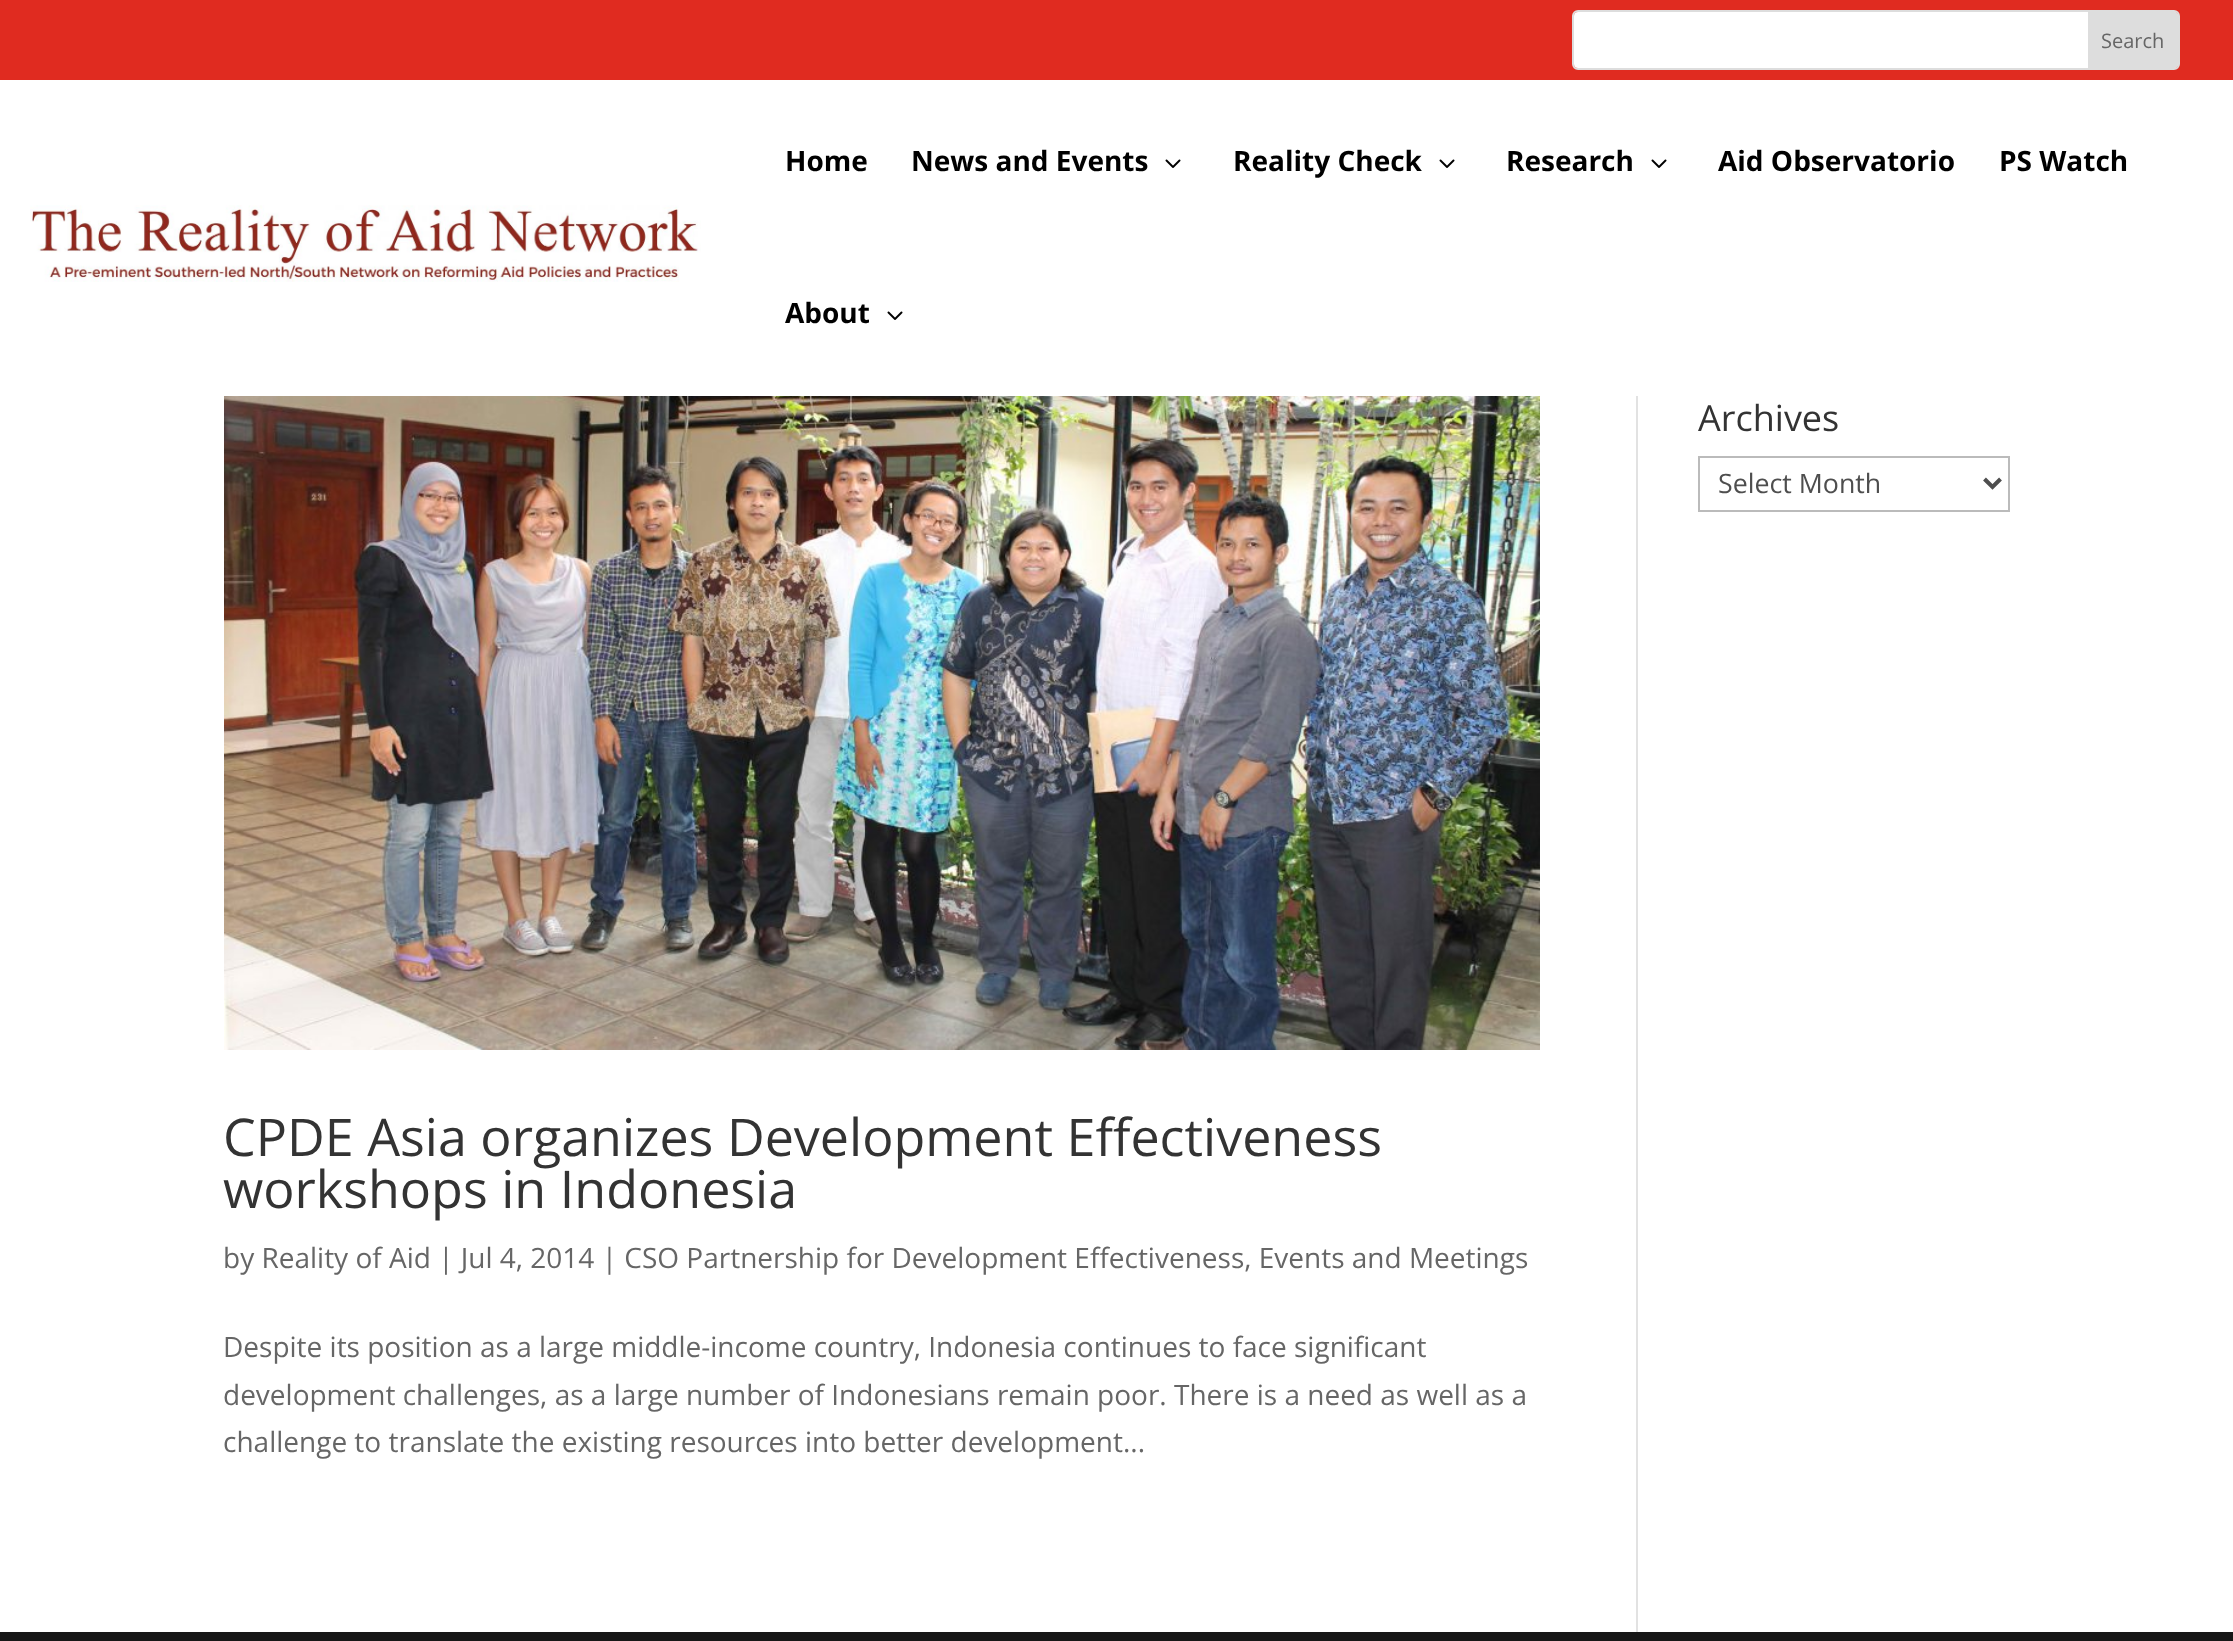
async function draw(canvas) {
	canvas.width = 2233;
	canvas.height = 1641;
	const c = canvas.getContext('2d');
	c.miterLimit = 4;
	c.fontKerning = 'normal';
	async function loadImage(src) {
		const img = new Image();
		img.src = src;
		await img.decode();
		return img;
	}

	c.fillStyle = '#fff';
	c.fillRect(0, 0, 2233, 1641);
	c.fillStyle = '#e02b20';
	c.fillRect(0, 0, 2233, 80);
	c.beginPath();
	c.roundRect(1573, 11, 606, 58, 5);
	c.strokeStyle = '#ddd';
	c.lineWidth = 2;
	c.stroke();
	c.fillStyle = '#fff';
	c.beginPath();
	c.roundRect(1574, 12, 604, 56, 4);
	c.fill();
	c.fillStyle = '#ddd';
	c.beginPath();
	c.roundRect(2088, 12, 90, 56, [0, 4, 4, 0]);
	c.fill();
	c.font = '20px Open Sans';
	c.fillStyle = '#666';
	c.fillText('Search', 2101, 48);
	c.drawImage(await loadImage('img1.png'), 30, 205, 671, 77);
	c.font = 'bold 28px Open Sans';
	c.fillStyle = '#000';
	c.fillText('Home', 785, 171);
	c.fillText('News and Events', 911, 171);
	c.drawImage(await loadImage('img2.png'), 1165, 159, 16, 9);
	c.fillText('Reality Check', 1233, 171);
	c.drawImage(await loadImage('img2.png'), 1439, 159, 16, 9);
	c.fillText('Research', 1506, 171);
	c.drawImage(await loadImage('img2.png'), 1651, 159, 16, 9);
	for (const [text, x, y] of [
		['Aid Observatorio', 1718, 171],
		['PS Watch', 1999, 171],
		['About', 785, 323],
	]) {
		c.fillText(text, x, y);
	}
	c.drawImage(await loadImage('img2.png'), 887, 311, 16, 9);
	c.fillStyle = '#e2e2e2';
	c.fillRect(1636, 396, 2, 1236);
	c.font = '36px Open Sans';
	c.fillStyle = '#333';
	c.fillText('Archives', 1698, 431);
	c.strokeStyle = '#bbb';
	c.strokeRect(1699, 457, 310, 54);
	c.beginPath();
	c.moveTo(1984.5, 479);
	c.lineTo(1992.5, 487);
	c.lineTo(2000.5, 479);
	c.strokeStyle = '#4e4e4e';
	c.lineWidth = 4;
	c.stroke();
	c.font = '26.75px Open Sans';
	c.fillStyle = '#4e4e4e';
	c.fillText('Select Month', 1718, 493);
	c.drawImage(await loadImage('img3.png'), 224, 396, 1316, 654);
	c.font = '52px Open Sans';
	c.fillStyle = '#333';
	c.fillText('CPDE Asia organizes Development Effectiveness', 223, 1156);
	c.fillText('workshops in Indonesia', 223, 1208);
	c.font = '28px Open Sans';
	c.fillStyle = '#666';
	for (const [text, x, y] of [
		['by Reality of Aid | Jul 4, 2014 | CSO Partnership for Development Effectiveness, Events and Meetings', 223, 1268],
		['Despite its position as a large middle-income country, Indonesia continues to face significant', 223, 1357],
		['development challenges, as a large number of Indonesians remain poor. There is a need as well as a', 223, 1405],
		['challenge to translate the existing resources into better development...', 223, 1452],
	]) {
		c.fillText(text, x, y);
	}
	c.fillStyle = '#171717';
	c.fillRect(0, 1632, 2233, 9);
}

draw(document.querySelector('canvas'));
